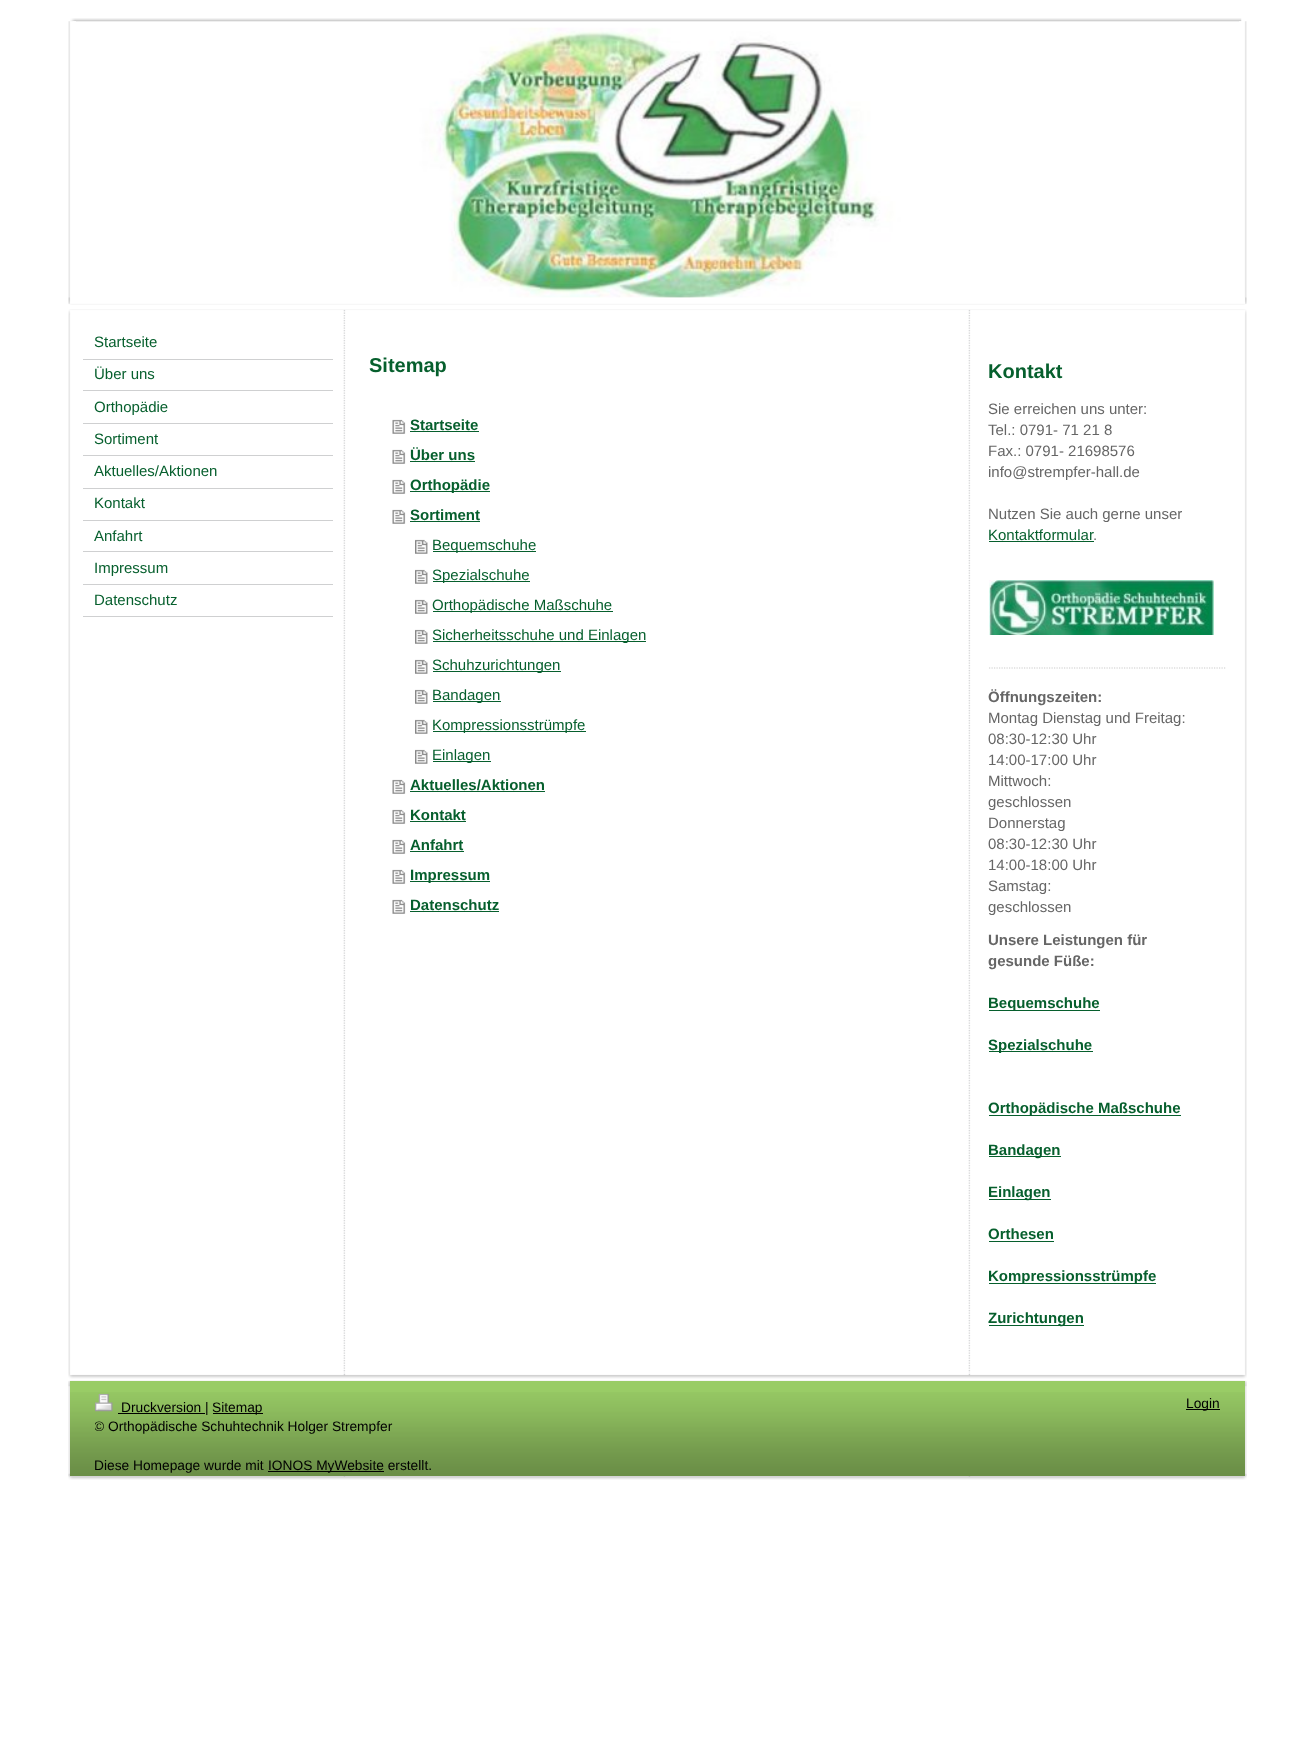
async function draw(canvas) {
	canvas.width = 1313;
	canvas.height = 1749;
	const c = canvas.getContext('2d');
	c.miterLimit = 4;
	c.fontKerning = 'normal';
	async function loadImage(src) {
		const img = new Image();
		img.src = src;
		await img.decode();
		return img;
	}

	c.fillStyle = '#fff';
	c.fillRect(0, 0, 1313, 1749);
	c.drawImage(await loadImage('img3.png'), 70, 21, 1175, 283);
	c.drawImage(await loadImage('img1.png'), 70, 18, 1172, 10);
	c.drawImage(await loadImage('img2.png'), 68, 21, 8, 283);
	c.drawImage(await loadImage('img4.png'), 1239, 21, 8, 283);
	c.drawImage(await loadImage('img5.png'), 68, 297, 1179, 8);
	c.drawImage(await loadImage('img6.png'), 68, 309, 1179, 6);
	c.drawImage(await loadImage('img7.png'), 68, 1372, 1179, 7);
	c.drawImage(await loadImage('img8.png'), 68, 315, 1179, 1058);
	c.fillStyle = '#cfd0d1';
	c.fillRect(83, 359, 250, 1);
	c.font = '15px Liberation Sans';
	c.fillStyle = '#065f2d';
	c.fillText('Startseite', 94, 347);
	c.fillStyle = '#cfd0d1';
	c.fillRect(83, 390, 250, 1);
	c.fillStyle = '#065f2d';
	c.fillText('Über uns', 94, 379);
	c.fillStyle = '#cfd0d1';
	c.fillRect(83, 423, 250, 1);
	c.fillStyle = '#065f2d';
	c.fillText('Orthopädie', 94, 412);
	c.fillStyle = '#cfd0d1';
	c.fillRect(83, 455, 250, 1);
	c.fillStyle = '#065f2d';
	c.fillText('Sortiment', 94, 444);
	c.fillStyle = '#cfd0d1';
	c.fillRect(83, 488, 250, 1);
	c.fillStyle = '#065f2d';
	c.fillText('Aktuelles/Aktionen', 94, 476);
	c.fillStyle = '#cfd0d1';
	c.fillRect(83, 520, 250, 1);
	c.fillStyle = '#065f2d';
	c.fillText('Kontakt', 94, 508);
	c.fillStyle = '#cfd0d1';
	c.fillRect(83, 551, 250, 1);
	c.fillStyle = '#065f2d';
	c.fillText('Anfahrt', 94, 541);
	c.fillStyle = '#cfd0d1';
	c.fillRect(83, 584, 250, 1);
	c.fillStyle = '#065f2d';
	c.fillText('Impressum', 94, 573);
	c.fillStyle = '#cfd0d1';
	c.fillRect(83, 616, 250, 1);
	c.fillStyle = '#065f2d';
	c.fillText('Datenschutz', 94, 605);
	c.font = 'bold 20px Liberation Sans';
	c.fillText('Sitemap', 369, 372);
	c.drawImage(await loadImage('img9.png'), 392, 419, 14, 15);
	c.font = 'bold 15px Liberation Sans';
	c.fillText('Startseite', 410, 430);
	c.fillRect(410, 431, 69, 1);
	c.drawImage(await loadImage('img9.png'), 392, 449, 14, 15);
	c.fillText('Über uns', 410, 460);
	c.fillRect(410, 461, 65, 1);
	c.drawImage(await loadImage('img9.png'), 392, 479, 14, 15);
	c.fillRect(410, 491, 80, 1);
	c.fillText('Orthopädie', 410, 490);
	c.drawImage(await loadImage('img9.png'), 392, 509, 14, 15);
	c.fillText('Sortiment', 410, 520);
	c.fillRect(410, 521, 70, 1);
	c.drawImage(await loadImage('img10.png'), 415, 539, 13, 15);
	c.fillRect(433, 551, 103, 1);
	c.font = '15px Liberation Sans';
	c.fillText('Bequemschuhe', 432, 550);
	c.drawImage(await loadImage('img10.png'), 415, 569, 13, 15);
	c.fillRect(433, 581, 97, 1);
	c.fillText('Spezialschuhe', 432, 580);
	c.drawImage(await loadImage('img10.png'), 415, 599, 13, 15);
	c.fillRect(433, 611, 180, 1);
	c.fillText('Orthopädische Maßschuhe', 432, 610);
	c.drawImage(await loadImage('img10.png'), 415, 629, 13, 15);
	c.fillRect(433, 641, 213, 1);
	c.fillText('Sicherheitsschuhe und Einlagen', 432, 640);
	c.drawImage(await loadImage('img10.png'), 415, 659, 13, 15);
	c.fillRect(433, 671, 128, 1);
	c.fillText('Schuhzurichtungen', 432, 670);
	c.drawImage(await loadImage('img10.png'), 415, 689, 13, 15);
	c.fillRect(433, 701, 68, 1);
	c.fillText('Bandagen', 432, 700);
	c.drawImage(await loadImage('img10.png'), 415, 719, 13, 15);
	c.fillRect(433, 731, 153, 1);
	c.fillText('Kompressionsstrümpfe', 432, 730);
	c.drawImage(await loadImage('img10.png'), 415, 749, 13, 15);
	c.fillRect(433, 761, 58, 1);
	c.fillText('Einlagen', 432, 760);
	c.drawImage(await loadImage('img11.png'), 392, 779, 14, 15);
	c.font = 'bold 15px Liberation Sans';
	c.fillText('Aktuelles/Aktionen', 410, 790);
	c.fillRect(410, 791, 135, 1);
	c.drawImage(await loadImage('img9.png'), 392, 809, 14, 15);
	c.fillText('Kontakt', 410, 820);
	c.fillRect(410, 821, 56, 1);
	c.drawImage(await loadImage('img9.png'), 392, 839, 14, 15);
	c.fillText('Anfahrt', 410, 850);
	c.fillRect(410, 851, 54, 1);
	c.drawImage(await loadImage('img9.png'), 392, 869, 14, 15);
	c.fillRect(410, 881, 80, 1);
	c.fillText('Impressum', 410, 880);
	c.drawImage(await loadImage('img9.png'), 392, 899, 14, 15);
	c.fillText('Datenschutz', 410, 910);
	c.fillRect(410, 911, 89, 1);
	c.font = 'bold 20px Liberation Sans';
	c.fillText('Kontakt', 988, 378);
	c.font = '15px Liberation Sans';
	c.fillStyle = '#666';
	for (const [text, x, y] of [
		['Sie erreichen uns unter:', 988, 414],
		['Tel.: 0791- 71 21 8', 988, 435],
		['Fax.: 0791- 21698576', 988, 456],
		['info@strempfer-hall.de', 988, 477],
		['Nutzen Sie auch gerne unser', 988, 519],
	]) {
		c.fillText(text, x, y);
	}
	c.fillStyle = '#065f2d';
	c.fillText('Kontaktformular', 988, 540);
	c.fillRect(989, 541, 105, 1);
	c.fillStyle = '#666';
	c.fillText('.', 1093, 540);
	c.drawImage(await loadImage('img12.png'), 989, 580, 225, 55);
	c.beginPath();
	c.moveTo(989, 668);
	c.lineTo(1226, 668);
	c.strokeStyle = '#ccc';
	c.lineWidth = 1.2;
	c.setLineDash([1.25, 1.25]);
	c.stroke();
	c.font = 'bold 15px Liberation Sans';
	c.fillText('Öffnungszeiten:', 988, 702);
	c.font = '15px Liberation Sans';
	for (const [text, x, y] of [
		['Montag Dienstag und Freitag:', 988, 723],
		['08:30-12:30 Uhr', 988, 744],
		['14:00-17:00 Uhr', 988, 765],
		['Mittwoch:', 988, 786],
		['geschlossen', 988, 807],
		['Donnerstag', 988, 828],
		['08:30-12:30 Uhr', 988, 849],
		['14:00-18:00 Uhr', 988, 870],
		['Samstag:', 988, 891],
		['geschlossen', 988, 912],
	]) {
		c.fillText(text, x, y);
	}
	c.font = 'bold 15px Liberation Sans';
	c.fillText('Unsere Leistungen für', 988, 945);
	c.fillText('gesunde Füße:', 988, 966);
	c.fillStyle = '#065f2d';
	c.fillRect(989, 1010, 111, 1);
	c.fillText('Bequemschuhe', 988, 1008);
	c.fillRect(989, 1051, 104, 1);
	c.fillText('Spezialschuhe', 988, 1050);
	c.fillRect(989, 1115, 192, 1);
	c.fillText('Orthopädische Maßschuhe', 988, 1113);
	c.fillRect(989, 1156, 72, 1);
	c.fillText('Bandagen', 988, 1155);
	c.fillRect(989, 1199, 62, 1);
	c.fillText('Einlagen', 988, 1197);
	c.fillText('Orthesen', 988, 1239);
	c.fillRect(989, 1241, 65, 1);
	c.fillRect(989, 1283, 167, 1);
	c.fillText('Kompressionsstrümpfe', 988, 1281);
	c.fillRect(989, 1325, 95, 1);
	c.fillText('Zurichtungen', 988, 1323);
	c.drawImage(await loadImage('img13.png'), 68, 1380, 1179, 7);
	c.drawImage(await loadImage('img14.png'), 68, 1473, 1179, 7);
	c.drawImage(await loadImage('img15.png'), 68, 1381, 1179, 96);
	c.fillStyle = '#9c6';
	c.fillRect(70, 1381, 1175, 95);
	c.drawImage(await loadImage('img16.png'), 70, 1392, 1175, 85);
	c.drawImage(await loadImage('img17.png'), 95, 1393, 18, 19);
	c.fillStyle = '#000';
	c.fillRect(118, 1413, 87, 1);
	c.font = '13.75px Liberation Sans';
	c.fillText('Druckversion |', 121, 1412);
	c.fillRect(213, 1413, 50, 1);
	c.fillText('Sitemap', 212, 1412);
	c.save();
	c.beginPath();
	c.rect(95, 1394, 1125, 81);
	c.clip();
	c.fillText('© Orthopädische Schuhtechnik Holger Strempfer', 94, 1431);
	c.restore();
	c.fillText('Diese Homepage wurde mit', 94, 1470);
	c.fillRect(268, 1471, 116, 1);
	c.fillText('IONOS MyWebsite erstellt.', 268, 1470);
	c.fillRect(1186, 1409, 34, 1);
	c.fillText('Login', 1186, 1408);
}

draw(document.querySelector('canvas'));
